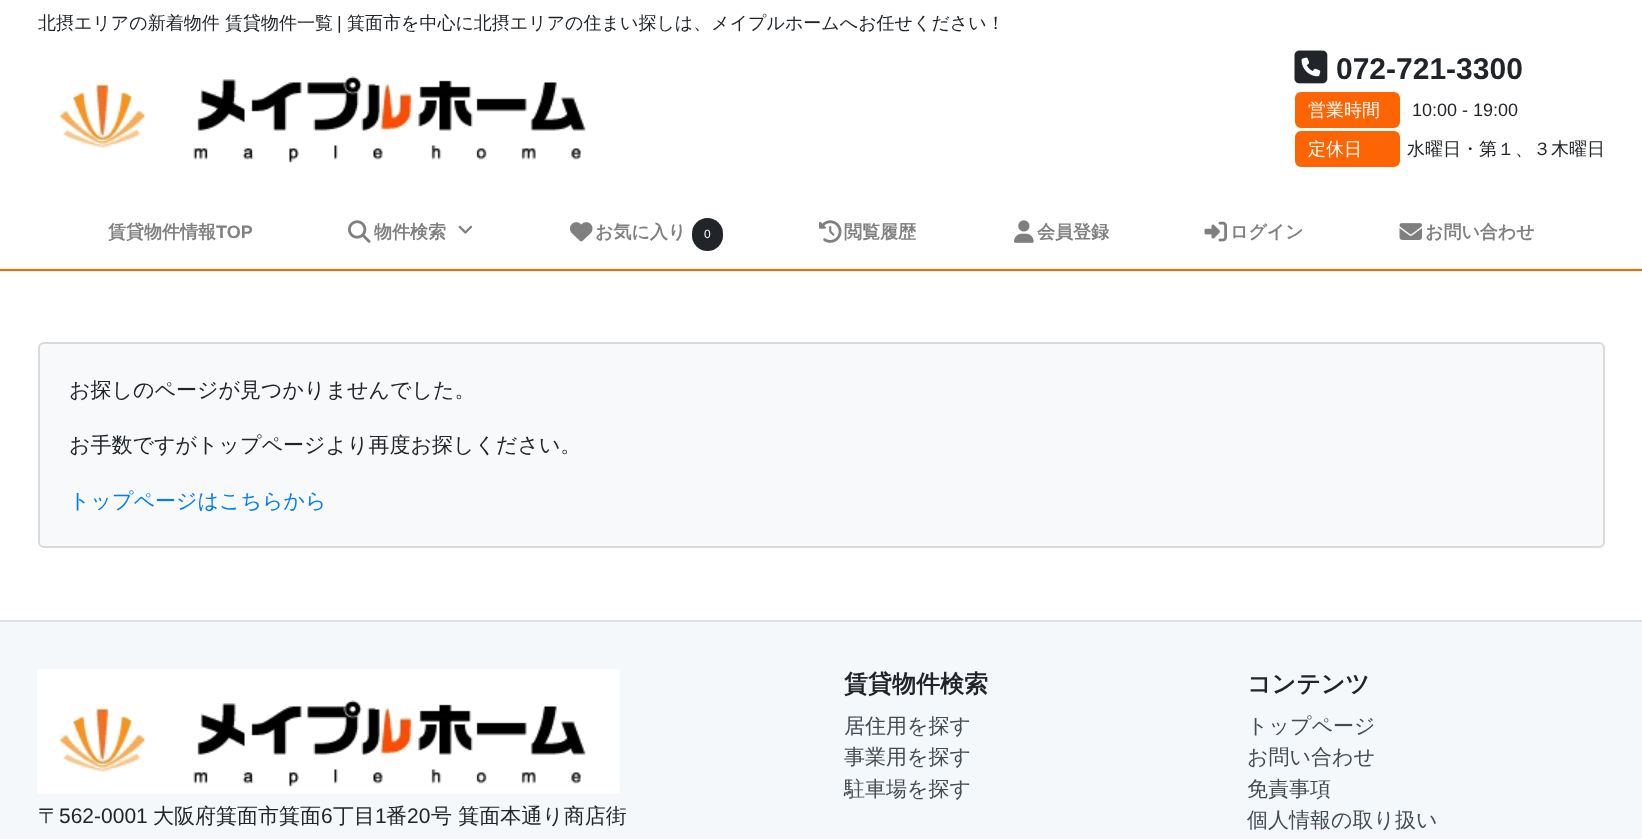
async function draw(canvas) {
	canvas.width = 1642;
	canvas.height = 839;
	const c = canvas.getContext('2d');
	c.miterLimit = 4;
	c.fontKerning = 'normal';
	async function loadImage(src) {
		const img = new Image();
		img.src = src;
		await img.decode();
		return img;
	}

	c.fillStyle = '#fff';
	c.fillRect(0, 0, 1642, 839);
	c.fillStyle = '#fc6404';
	c.fillRect(0, 269, 1642, 2);
	c.font = '500 18px WenQuanYi Zen Hei';
	c.fillStyle = '#212529';
	c.fillText('北摂エリアの新着物件 賃貸物件一覧', 38, 29);
	c.font = '18px Liberation Sans';
	c.fillText('|', 337, 29);
	c.font = '500 18px WenQuanYi Zen Hei';
	c.fillText('箕面市を中心に北摂エリアの住まい探しは、メイプルホームへお任せください！', 347, 29);
	c.drawImage(await loadImage('img1.png'), 59, 76, 527, 87);
	c.drawImage(await loadImage('img2.png'), 1294, 50, 34, 34);
	c.font = 'bold 30px Liberation Sans';
	c.fillText('072-721-3300', 1336, 79);
	c.fillStyle = '#fc6404';
	c.beginPath();
	c.roundRect(1296, 93, 103, 34, 5);
	c.fill();
	c.strokeStyle = '#fc6404';
	c.lineWidth = 2;
	c.stroke();
	c.font = '500 18px WenQuanYi Zen Hei';
	c.fillStyle = '#fff';
	c.fillText('営業時間', 1308, 116);
	c.font = '18px Liberation Sans';
	c.fillStyle = '#212529';
	c.fillText('10:00 - 19:00', 1412, 116);
	c.fillStyle = '#fc6404';
	c.beginPath();
	c.roundRect(1296, 132, 103, 34, 5);
	c.fill();
	c.stroke();
	c.font = '500 18px WenQuanYi Zen Hei';
	c.fillStyle = '#fff';
	c.fillText('定休日', 1308, 155);
	c.fillStyle = '#212529';
	c.fillText('水曜日・第１、３木曜日', 1407, 155);
	c.font = 'bold 18px WenQuanYi Zen Hei';
	c.fillStyle = '#808080';
	c.fillText('賃貸物件情報', 108, 238);
	c.font = 'bold 18px Liberation Sans';
	c.fillText('TOP', 216, 238);
	c.drawImage(await loadImage('img3.png'), 348, 220, 23, 23);
	c.font = 'bold 18px WenQuanYi Zen Hei';
	c.fillText('物件検索', 374, 238);
	c.drawImage(await loadImage('img4.png'), 458, 225, 15, 9);
	c.drawImage(await loadImage('img5.png'), 570, 222, 23, 20);
	c.fillText('お気に入り', 595, 238);
	c.fillStyle = '#212529';
	c.beginPath();
	c.roundRect(692, 218, 31, 33, 15.5);
	c.fill();
	c.font = '12px Liberation Sans';
	c.fillStyle = '#fff';
	c.fillText('0', 704, 238);
	c.drawImage(await loadImage('img6.png'), 819, 220, 23, 23);
	c.font = 'bold 18px WenQuanYi Zen Hei';
	c.fillStyle = '#808080';
	c.fillText('閲覧履歴', 844, 238);
	c.drawImage(await loadImage('img7.png'), 1014, 220, 20, 23);
	c.fillText('会員登録', 1037, 238);
	c.drawImage(await loadImage('img8.png'), 1204, 221, 23, 21);
	c.fillText('ログイン', 1230, 238);
	c.drawImage(await loadImage('img9.png'), 1399, 223, 23, 17);
	c.fillText('お問い合わせ', 1425, 238);
	c.fillStyle = '#f8f9fa';
	c.beginPath();
	c.roundRect(39, 343, 1565, 204, 5);
	c.fill();
	c.strokeStyle = '#d9dadb';
	c.stroke();
	c.font = '500 21px WenQuanYi Zen Hei';
	c.fillStyle = '#212529';
	c.fillText('お探しのページが見つかりませんでした。', 69, 397);
	c.fillText('お手数ですがトップページより再度お探しください。', 69, 452);
	c.fillStyle = '#007bff';
	c.fillText('トップページはこちらから', 69, 508);
	c.fillStyle = '#f5f8fa';
	c.fillRect(0, 622, 1642, 217);
	c.fillStyle = '#dee2e6';
	c.fillRect(0, 620, 1642, 2);
	c.drawImage(await loadImage('img10.png'), 37, 669, 583, 125);
	c.fillStyle = '#212529';
	c.fillText('〒', 38, 823);
	c.font = '21px Liberation Sans';
	c.fillText('562-0001', 59, 823);
	c.font = '500 21px WenQuanYi Zen Hei';
	c.fillText('大阪府箕面市箕面', 153, 823);
	c.font = '21px Liberation Sans';
	c.fillText('6', 321, 823);
	c.font = '500 21px WenQuanYi Zen Hei';
	c.fillText('丁目', 333, 823);
	c.font = '21px Liberation Sans';
	c.fillText('1', 375, 823);
	c.font = '500 21px WenQuanYi Zen Hei';
	c.fillText('番', 386, 823);
	c.font = '21px Liberation Sans';
	c.fillText('20', 407, 823);
	c.font = '500 21px WenQuanYi Zen Hei';
	c.fillText('号 箕面本通り商店街', 431, 823);
	c.font = 'bold 24px WenQuanYi Zen Hei';
	c.fillText('賃貸物件検索', 844, 692);
	c.font = '500 21px WenQuanYi Zen Hei';
	c.fillStyle = '#434b53';
	for (const [text, x, y] of [
		['居住用を探す', 844, 733],
		['事業用を探す', 844, 764],
		['駐車場を探す', 844, 796],
	]) {
		c.fillText(text, x, y);
	}
	c.font = 'bold 24px WenQuanYi Zen Hei';
	c.fillStyle = '#212529';
	c.fillText('コンテンツ', 1247, 692);
	c.font = '500 21px WenQuanYi Zen Hei';
	c.fillStyle = '#434b53';
	for (const [text, x, y] of [
		['トップページ', 1247, 733],
		['お問い合わせ', 1247, 764],
		['免責事項', 1247, 796],
		['個人情報の取り扱い', 1247, 827],
	]) {
		c.fillText(text, x, y);
	}
}

draw(document.querySelector('canvas'));
